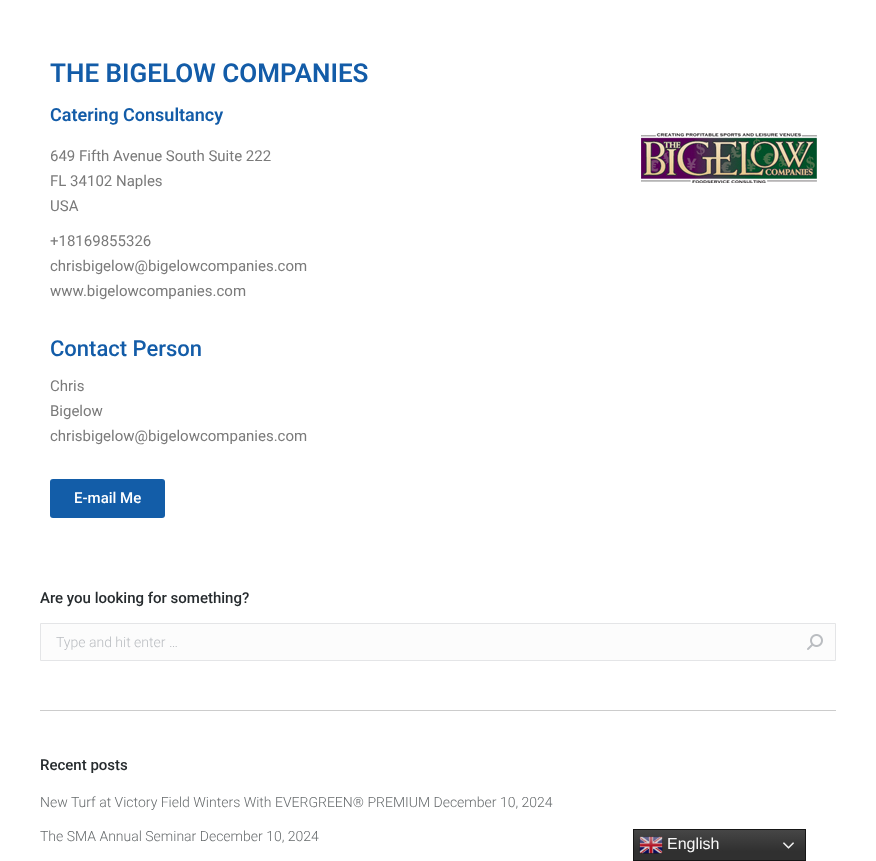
async function draw(canvas) {
	canvas.width = 876;
	canvas.height = 861;
	const c = canvas.getContext('2d');
	c.miterLimit = 4;
	c.fontKerning = 'normal';
	async function loadImage(src) {
		const img = new Image();
		img.src = src;
		await img.decode();
		return img;
	}
	let gradient;

	c.fillStyle = '#fff';
	c.fillRect(0, 0, 876, 861);
	c.font = '600 26px Roboto';
	c.fillStyle = '#135ca8';
	c.fillText('THE BIGELOW COMPANIES', 50, 82);
	c.font = '600 18px Roboto';
	c.fillText('Catering Consultancy', 50, 121);
	c.font = '15px Roboto';
	c.fillStyle = '#7a7a7a';
	for (const [text, x, y] of [
		['649 Fifth Avenue South Suite 222', 50, 161],
		['FL 34102 Naples', 50, 186],
		['USA', 50, 211],
		['+18169855326', 50, 246],
		['chrisbigelow@bigelowcompanies.com', 50, 271],
		['www.bigelowcompanies.com', 50, 296],
	]) {
		c.fillText(text, x, y);
	}
	c.drawImage(await loadImage('img1.png'), 641, 133, 176, 50);
	c.font = '500 22px Roboto';
	c.fillStyle = '#135ca8';
	c.fillText('Contact Person', 50, 356);
	c.font = '15px Roboto';
	c.fillStyle = '#7a7a7a';
	for (const [text, x, y] of [
		['Chris', 50, 391],
		['Bigelow', 50, 416],
		['chrisbigelow@bigelowcompanies.com', 50, 441],
	]) {
		c.fillText(text, x, y);
	}
	c.fillStyle = '#135da8';
	c.beginPath();
	c.roundRect(50, 479, 115, 39, 3);
	c.fill();
	c.font = '500 15px Roboto';
	c.fillStyle = '#fff';
	c.fillText('E-mail Me', 74, 503);
	c.fillStyle = '#262b2e';
	c.fillText('Are you looking for something?', 40, 603);
	c.fillStyle = '#fcfcfc';
	c.beginPath();
	c.rect(40.5, 623.5, 795, 37);
	c.fill();
	c.strokeStyle = '#e4e5e7';
	c.stroke();
	c.font = '300 14px Roboto';
	c.fillStyle = '#babdc1';
	c.fillText('Type and hit enter …', 56, 647);
	c.drawImage(await loadImage('img2.png'), 807, 634, 16, 16);
	c.fillStyle = '#ccc';
	c.fillRect(40, 710, 796, 1);
	c.font = '500 15px Roboto';
	c.fillStyle = '#262b2e';
	c.fillText('Recent posts', 40, 770);
	c.font = '300 14px Roboto';
	c.fillStyle = '#676b6d';
	c.fillText('New Turf at Victory Field Winters With EVERGREEN® PREMIUM December 10, 2024', 40, 807);
	c.fillText('The SMA Annual Seminar December 10, 2024', 40, 841);
	gradient = c.createLinearGradient(720, 829, 720, 861);
	gradient.addColorStop(0, '#474747');
	gradient.addColorStop(0.7, '#303030');
	c.fillStyle = gradient;
	c.fillRect(634, 830, 171, 30);
	c.strokeStyle = '#161616';
	c.strokeRect(633.5, 829.5, 172, 31);
	c.drawImage(await loadImage('img3.png'), 639, 836, 24, 18);
	c.font = '16px Liberation Sans';
	c.fillStyle = '#f7f7f7';
	c.fillText('English', 667, 849);
	c.drawImage(await loadImage('img4.png'), 783, 842, 11, 7);
}

draw(document.querySelector('canvas'));
